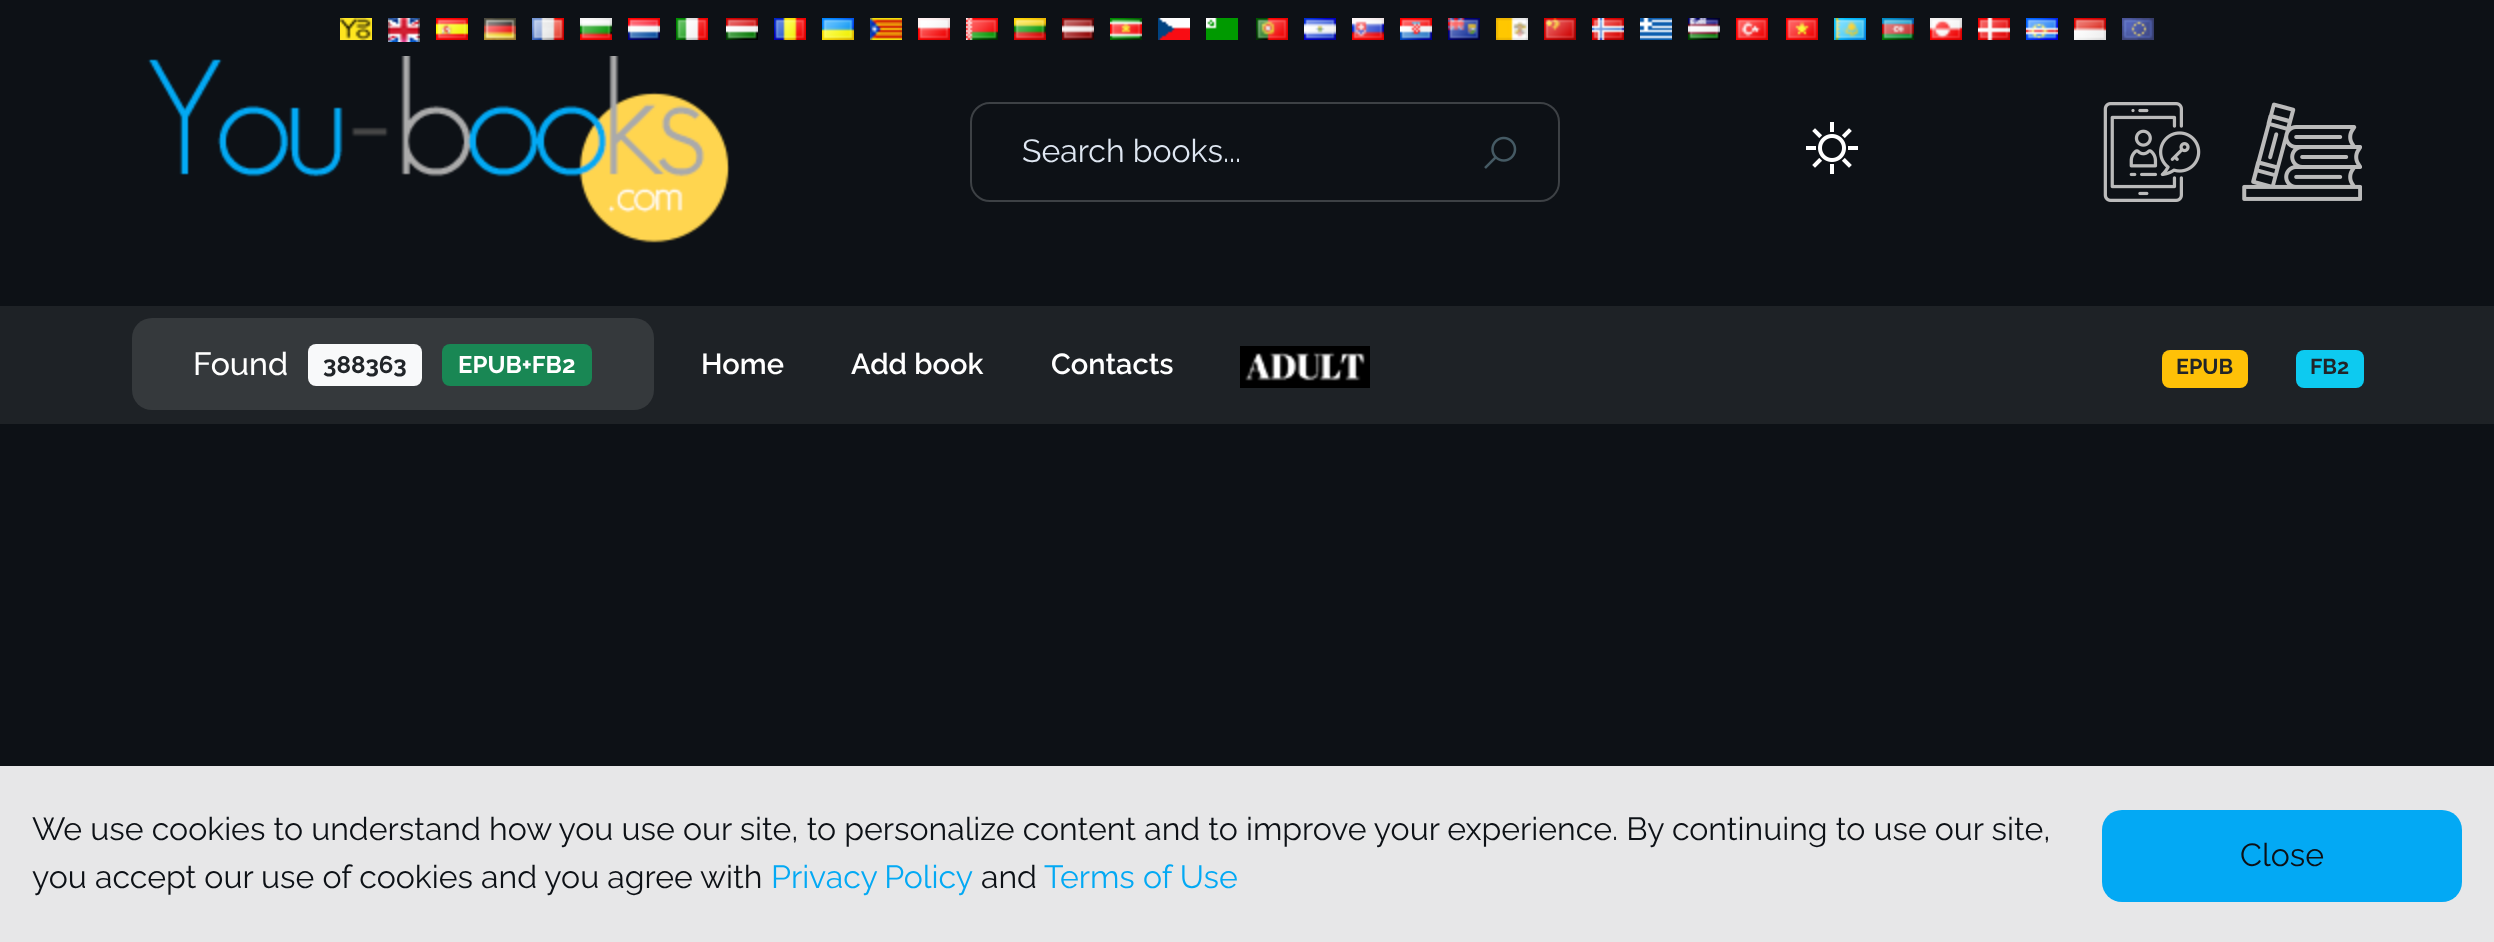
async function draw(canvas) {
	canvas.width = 2494;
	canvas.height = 942;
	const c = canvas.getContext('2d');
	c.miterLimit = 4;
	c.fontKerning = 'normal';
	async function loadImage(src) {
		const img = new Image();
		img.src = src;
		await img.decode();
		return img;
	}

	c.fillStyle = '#0d1116';
	c.fillRect(0, 0, 2494, 942);
	c.drawImage(await loadImage('img1.png'), 340, 18, 32, 22);
	c.drawImage(await loadImage('img2.png'), 388, 18, 32, 24);
	c.drawImage(await loadImage('img3.png'), 436, 18, 32, 22);
	c.drawImage(await loadImage('img4.png'), 484, 18, 32, 22);
	c.drawImage(await loadImage('img5.png'), 532, 18, 32, 22);
	c.drawImage(await loadImage('img6.png'), 580, 18, 32, 22);
	c.drawImage(await loadImage('img7.png'), 628, 18, 32, 22);
	c.drawImage(await loadImage('img8.png'), 676, 18, 32, 22);
	c.drawImage(await loadImage('img9.png'), 726, 18, 32, 22);
	c.drawImage(await loadImage('img10.png'), 774, 18, 32, 22);
	c.drawImage(await loadImage('img11.png'), 822, 18, 32, 22);
	c.drawImage(await loadImage('img12.png'), 870, 18, 32, 22);
	c.drawImage(await loadImage('img13.png'), 918, 18, 32, 22);
	c.drawImage(await loadImage('img14.png'), 966, 18, 32, 22);
	c.drawImage(await loadImage('img15.png'), 1014, 18, 32, 22);
	c.drawImage(await loadImage('img16.png'), 1062, 18, 32, 22);
	c.drawImage(await loadImage('img17.png'), 1110, 18, 32, 22);
	c.drawImage(await loadImage('img18.png'), 1158, 18, 32, 22);
	c.drawImage(await loadImage('img19.png'), 1206, 18, 32, 22);
	c.drawImage(await loadImage('img20.png'), 1256, 18, 32, 22);
	c.drawImage(await loadImage('img21.png'), 1304, 18, 32, 22);
	c.drawImage(await loadImage('img22.png'), 1352, 18, 32, 22);
	c.drawImage(await loadImage('img23.png'), 1400, 18, 32, 22);
	c.drawImage(await loadImage('img24.png'), 1448, 18, 32, 22);
	c.drawImage(await loadImage('img25.png'), 1496, 18, 32, 22);
	c.drawImage(await loadImage('img26.png'), 1544, 18, 32, 22);
	c.drawImage(await loadImage('img27.png'), 1592, 18, 32, 22);
	c.drawImage(await loadImage('img28.png'), 1640, 18, 32, 22);
	c.drawImage(await loadImage('img29.png'), 1688, 18, 32, 22);
	c.drawImage(await loadImage('img30.png'), 1736, 18, 32, 22);
	c.drawImage(await loadImage('img31.png'), 1786, 18, 32, 22);
	c.drawImage(await loadImage('img32.png'), 1834, 18, 32, 22);
	c.drawImage(await loadImage('img33.png'), 1882, 18, 32, 22);
	c.drawImage(await loadImage('img34.png'), 1930, 18, 32, 22);
	c.drawImage(await loadImage('img35.png'), 1978, 18, 32, 22);
	c.drawImage(await loadImage('img36.png'), 2026, 18, 32, 22);
	c.drawImage(await loadImage('img37.png'), 2074, 18, 32, 22);
	c.drawImage(await loadImage('img38.png'), 2122, 18, 32, 22);
	c.drawImage(await loadImage('img39.png'), 147, 56, 583, 187);
	c.beginPath();
	c.roundRect(971, 103, 588, 98, 19);
	c.strokeStyle = '#3d4145';
	c.lineWidth = 2;
	c.stroke();
	c.font = '32px Raleway';
	c.fillStyle = '#dfe7f2';
	c.fillText('Search books...', 1022, 162);
	c.drawImage(await loadImage('img40.png'), 1484, 136, 33, 33);
	c.drawImage(await loadImage('img41.png'), 1806, 122, 52, 52);
	c.drawImage(await loadImage('img42.png'), 2103, 102, 98, 100);
	c.drawImage(await loadImage('img43.png'), 2242, 102, 120, 99);
	c.fillStyle = '#1e2226';
	c.fillRect(0, 306, 2494, 118);
	c.fillStyle = '#35393c';
	c.beginPath();
	c.roundRect(132, 318, 522, 92, 20);
	c.fill();
	c.font = '500 32px Raleway';
	c.fillStyle = '#fff';
	c.fillText('Found', 193, 375);
	c.fillStyle = '#f8f9fa';
	c.beginPath();
	c.roundRect(308, 344, 114, 42, 8);
	c.fill();
	c.font = 'bold 24px Raleway';
	c.fillStyle = '#212529';
	c.fillText('388363', 323, 373);
	c.fillStyle = '#198754';
	c.beginPath();
	c.roundRect(442, 344, 150, 42, 8);
	c.fill();
	c.fillStyle = '#fff';
	c.fillText('EPUB+FB2', 458, 373);
	c.font = '600 29px Raleway';
	for (const [text, x, y] of [
		['Home', 701, 374],
		['Add book', 851, 374],
		['Contacts', 1051, 374],
	]) {
		c.fillText(text, x, y);
	}
	c.drawImage(await loadImage('img44.png'), 1240, 346, 130, 42);
	c.fillStyle = '#ffc107';
	c.beginPath();
	c.roundRect(2162, 350, 86, 38, 8);
	c.fill();
	c.font = 'bold 21.5px Raleway';
	c.fillStyle = '#212529';
	c.fillText('EPUB', 2176, 374);
	c.fillStyle = '#0dcaf0';
	c.beginPath();
	c.roundRect(2296, 350, 68, 38, 8);
	c.fill();
	c.fillStyle = '#212529';
	c.fillText('FB2', 2310, 374);
	c.fillStyle = '#e7e7e8';
	c.fillRect(0, 766, 2494, 176);
	c.font = '32px Raleway';
	c.fillStyle = '#0d1116';
	c.fillText('We use cookies to understand how you use our site, to personalize content and to improve your experience. By continuing to use our site,', 32, 840);
	c.fillText('you accept our use of cookies and you agree with', 32, 888);
	c.wordSpacing = '-1px';
	c.fillStyle = '#03a9f4';
	c.fillText('Privacy Policy', 771, 888);
	c.wordSpacing = '0px';
	c.fillStyle = '#0d1116';
	c.fillText('and', 981, 888);
	c.fillStyle = '#03a9f4';
	c.fillText('Terms of Use', 1044, 888);
	c.beginPath();
	c.roundRect(2102, 810, 360, 92, 20);
	c.fill();
	c.fillStyle = '#0d1116';
	c.fillText('Close', 2240, 866);
}

draw(document.querySelector('canvas'));
